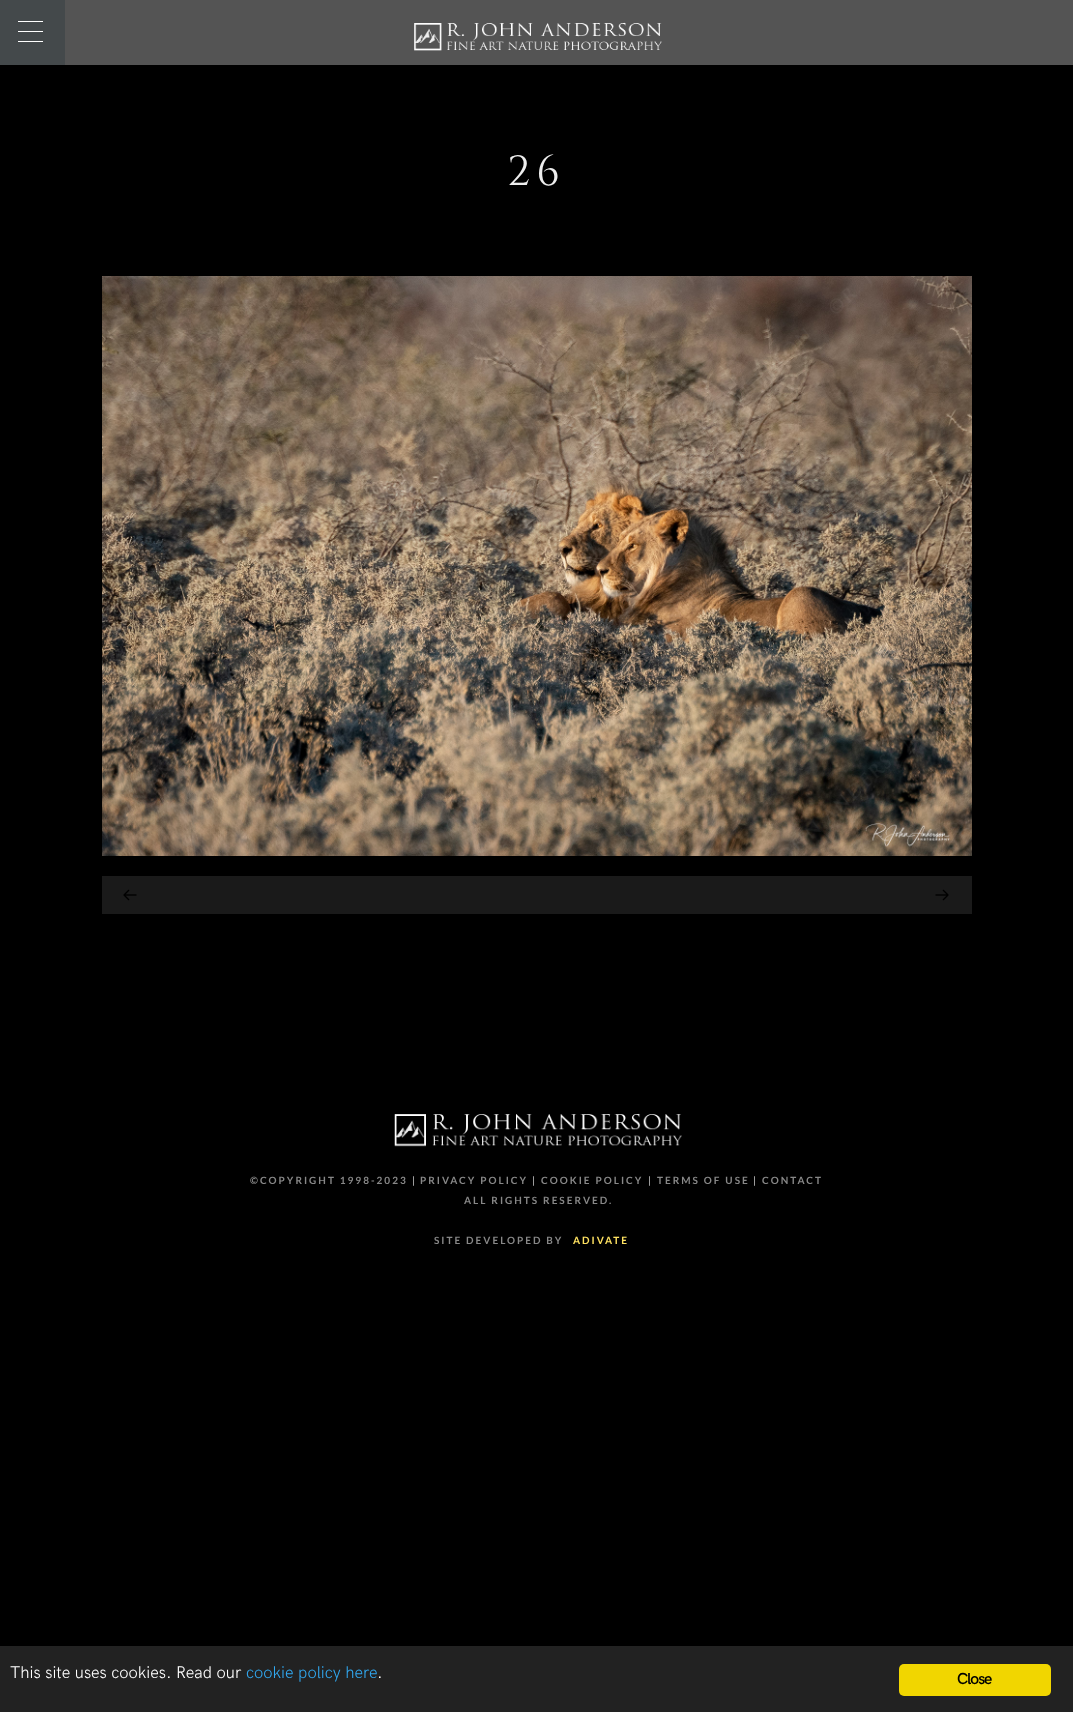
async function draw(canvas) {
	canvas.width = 1073;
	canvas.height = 1712;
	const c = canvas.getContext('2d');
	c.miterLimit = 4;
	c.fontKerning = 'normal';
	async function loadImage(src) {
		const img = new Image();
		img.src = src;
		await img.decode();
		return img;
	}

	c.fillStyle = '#000';
	c.fillRect(0, 0, 1073, 1712);
	for (const [x, y, w, h, color] of [
		[0, 0, 65, 65, '#44494b'],
		[18, 31, 25, 1, '#fff'],
		[18, 21, 25, 1, '#fff'],
		[18, 41, 25, 1, '#fff'],
		[65, 0, 1008, 65, '#545454'],
	]) {
		c.fillStyle = color;
		c.fillRect(x, y, w, h);
	}
	c.drawImage(await loadImage('img1.png'), 414, 22, 248, 29);
	c.letterSpacing = '6px';
	c.font = '42px Cinzel';
	c.fillStyle = '#eee';
	c.fillText('26', 507, 185);
	c.drawImage(await loadImage('img2.png'), 102, 276, 870, 580);
	c.fillStyle = '#1a1a1a';
	c.fillRect(102, 876, 870, 38);
	c.drawImage(await loadImage('img3.png'), 123, 889, 14, 12);
	c.drawImage(await loadImage('img4.png'), 935, 889, 14, 12);
	c.drawImage(await loadImage('img5.png'), 394, 1113, 288, 34);
	c.letterSpacing = '2px';
	c.font = 'bold 10px Lato';
	c.fillStyle = '#888';
	c.fillText('©COPYRIGHT 1998-2023', 250, 1184);
	c.fillStyle = '#a1a1a1';
	c.fillText('|', 412, 1184);
	c.fillStyle = '#888';
	c.fillText('PRIVACY POLICY', 420, 1184);
	c.fillStyle = '#a1a1a1';
	c.fillText('|', 532, 1184);
	c.fillStyle = '#888';
	c.fillText('COOKIE POLICY', 541, 1184);
	c.fillStyle = '#a1a1a1';
	c.fillText('|', 648, 1184);
	c.fillStyle = '#888';
	c.fillText('TERMS OF USE', 657, 1184);
	c.fillStyle = '#a1a1a1';
	c.fillText('|', 753, 1184);
	c.fillStyle = '#888';
	for (const [text, x, y] of [
		['CONTACT', 762, 1184],
		['ALL RIGHTS RESERVED.', 464, 1204],
		['SITE DEVELOPED BY', 434, 1244],
	]) {
		c.fillText(text, x, y);
	}
	c.fillStyle = '#ffe261';
	c.fillText('ADIVATE', 573, 1244);
	c.fillStyle = '#222';
	c.fillRect(0, 1646, 1073, 66);
	c.letterSpacing = '0px';
	c.font = '300 17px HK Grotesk';
	c.fillStyle = '#fff';
	c.fillText('This site uses cookies. Read our', 10, 1678);
	c.fillStyle = '#31a8f0';
	c.fillText('cookie policy here', 246, 1678);
	c.fillStyle = '#fff';
	c.fillText('.', 377, 1678);
	c.fillStyle = '#f1d600';
	c.beginPath();
	c.roundRect(899, 1664, 152, 32, 5);
	c.fill();
	c.letterSpacing = '-1px';
	c.font = '600 16px HK Grotesk';
	c.fillStyle = '#000';
	c.fillText('Close', 957, 1684);
}

draw(document.querySelector('canvas'));
